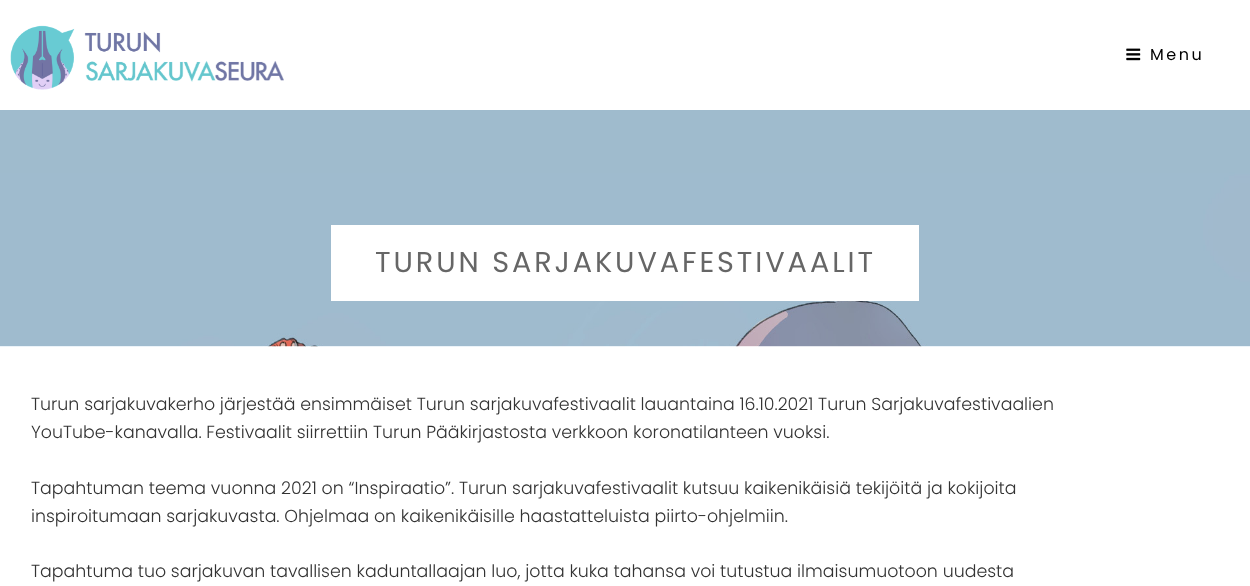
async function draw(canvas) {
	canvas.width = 1250;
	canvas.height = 586;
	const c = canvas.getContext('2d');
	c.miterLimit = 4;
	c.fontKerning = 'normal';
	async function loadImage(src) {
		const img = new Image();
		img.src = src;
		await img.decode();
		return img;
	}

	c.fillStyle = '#fff';
	c.fillRect(0, 0, 1250, 586);
	c.drawImage(await loadImage('img1.png'), 10, 25, 274, 65);
	c.drawImage(await loadImage('img2.png'), 1126, 48, 15, 13);
	c.letterSpacing = '2.5px';
	c.font = '16px Poppins';
	c.fillStyle = '#000';
	c.fillText('Menu', 1150, 60);
	c.drawImage(await loadImage('img3.png'), 0, 110, 1250, 237);
	c.fillStyle = '#fff';
	c.fillRect(331, 225, 588, 76);
	c.letterSpacing = '2.9px';
	c.font = '28.75px Poppins';
	c.fillStyle = '#666';
	c.fillText('TURUN SARJAKUVAFESTIVAALIT', 375, 272);
	c.letterSpacing = '0px';
	c.font = '300 17.4px Poppins';
	c.fillStyle = '#333';
	for (const [text, x, y] of [
		['Turun sarjakuvakerho järjestää ensimmäiset Turun sarjakuvafestivaalit lauantaina 16.10.2021 Turun Sarjakuvafestivaalien', 31, 410],
		['YouTube-kanavalla. Festivaalit siirrettiin Turun Pääkirjastosta verkkoon koronatilanteen vuoksi.', 31, 438],
		['Tapahtuman teema vuonna 2021 on “Inspiraatio”. Turun sarjakuvafestivaalit kutsuu kaikenikäisiä tekijöitä ja kokijoita', 31, 494],
		['inspiroitumaan sarjakuvasta. Ohjelmaa on kaikenikäisille haastatteluista piirto-ohjelmiin.', 31, 522],
		['Tapahtuma tuo sarjakuvan tavallisen kaduntallaajan luo, jotta kuka tahansa voi tutustua ilmaisumuotoon uudesta', 31, 577],
	]) {
		c.fillText(text, x, y);
	}
}

draw(document.querySelector('canvas'));
